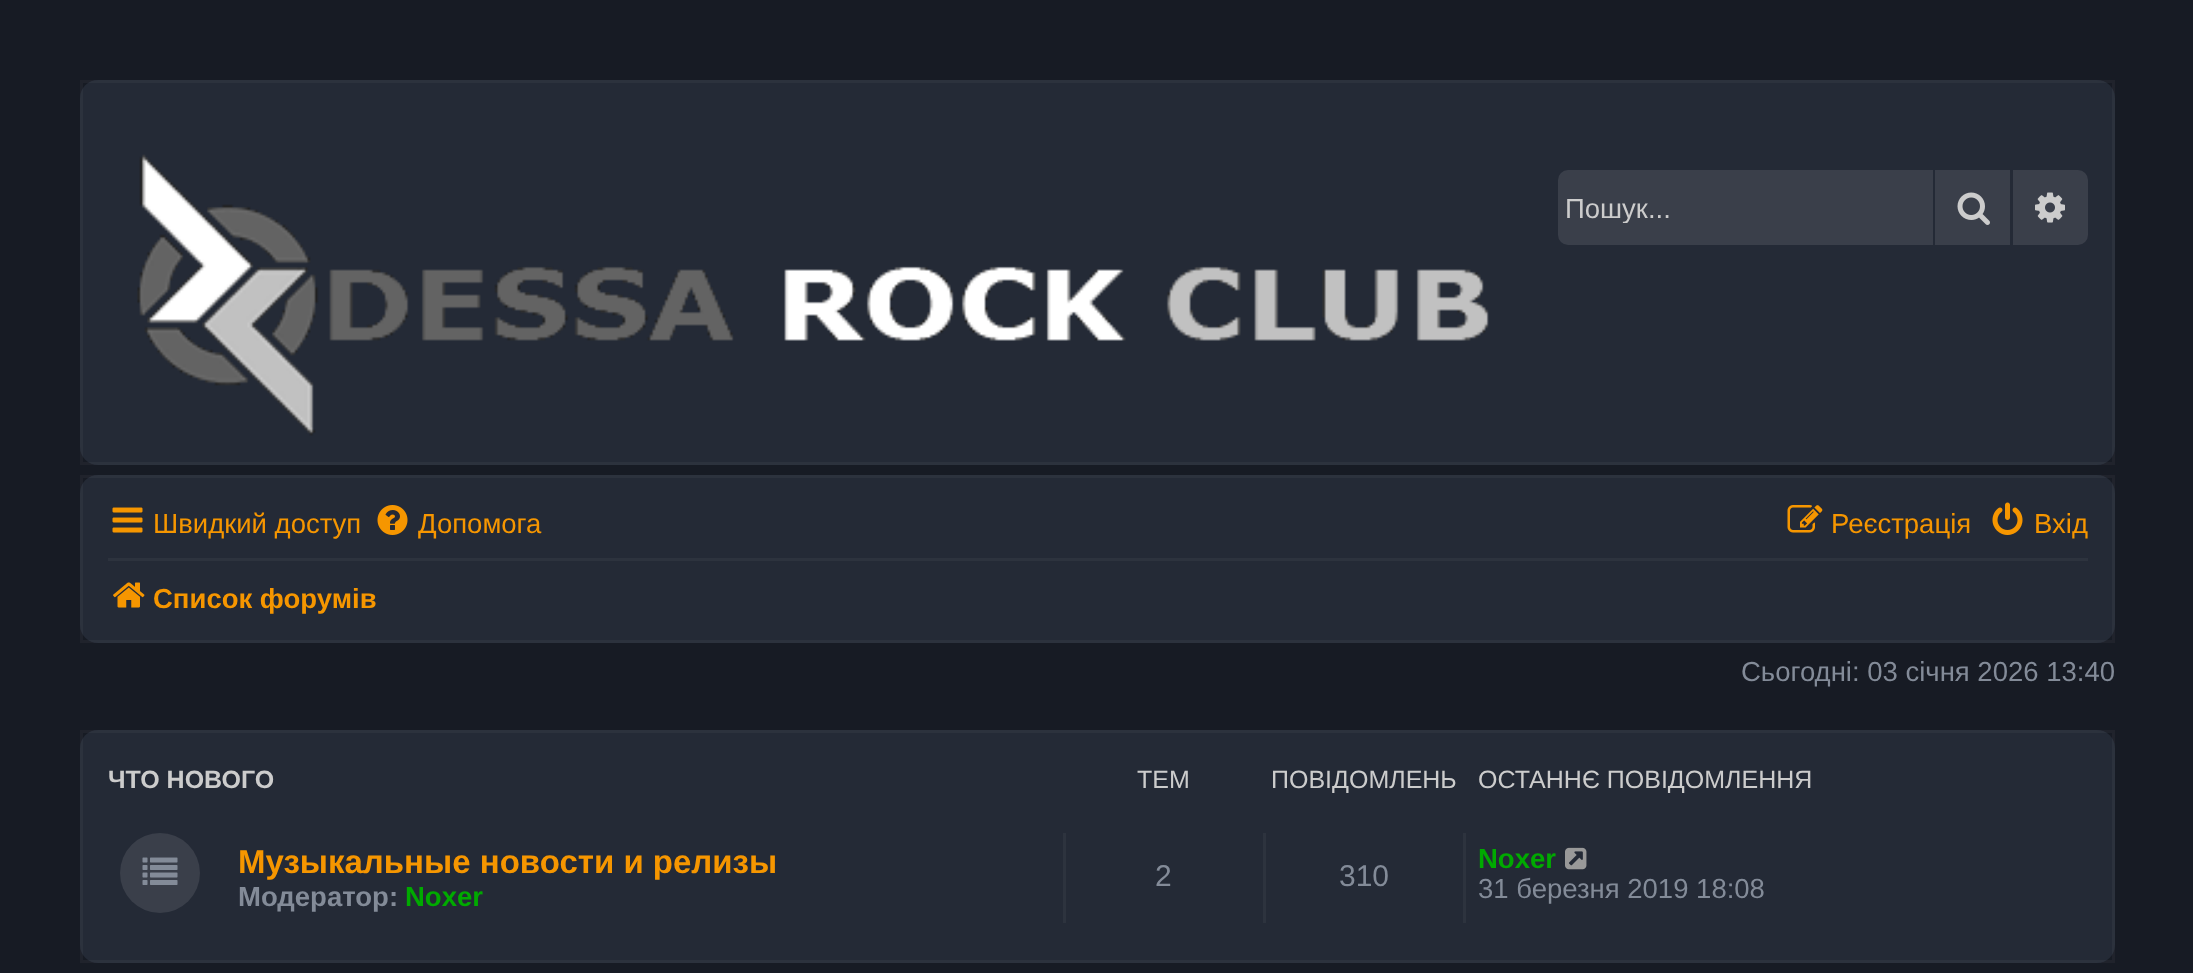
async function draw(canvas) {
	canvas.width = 2193;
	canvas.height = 973;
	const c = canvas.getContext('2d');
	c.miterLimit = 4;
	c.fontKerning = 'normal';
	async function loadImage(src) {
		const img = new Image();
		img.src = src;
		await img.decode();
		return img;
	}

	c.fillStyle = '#171b24';
	c.fillRect(0, 0, 2193, 973);
	c.fillStyle = '#242a36';
	c.beginPath();
	c.roundRect(80, 80, 2035, 385, 18);
	c.fill();
	c.strokeStyle = '#ffffff0a';
	c.lineWidth = 3;
	c.strokeRect(81.5, 81.5, 2032, 382);
	c.drawImage(await loadImage('img1.png'), 137, 154, 1352, 282);
	c.fillStyle = '#3a3f4a';
	c.beginPath();
	c.roundRect(1558, 170, 375, 75, [10, 0, 0, 10]);
	c.fill();
	c.save();
	c.beginPath();
	c.rect(1565, 193, 350, 30);
	c.clip();
	c.font = '27.5px Liberation Sans';
	c.fillStyle = '#ccc';
	c.fillText('Пошук...', 1565, 218);
	c.restore();
	c.fillRect(1935, 170, 75, 75);
	c.drawImage(await loadImage('img2.png'), 1957, 192, 33, 33);
	c.beginPath();
	c.roundRect(2013, 170, 75, 75, [0, 10, 10, 0]);
	c.fill();
	c.drawImage(await loadImage('img3.png'), 2035, 192, 30, 31);
	c.fillStyle = '#242a36';
	c.beginPath();
	c.roundRect(80, 475, 2035, 168, 18);
	c.fill();
	c.strokeRect(81.5, 476.5, 2032, 165);
	c.drawImage(await loadImage('img4.png'), 112, 507, 31, 26);
	c.font = '27.5px Liberation Sans';
	c.fillStyle = '#f69600';
	c.fillText('Швидкий доступ', 153, 533);
	c.drawImage(await loadImage('img5.png'), 377, 505, 31, 30);
	c.fillText('Допомога', 418, 533);
	c.drawImage(await loadImage('img6.png'), 1787, 505, 36, 28);
	c.fillText('Реєстрація', 1831, 533);
	c.drawImage(await loadImage('img7.png'), 1992, 502, 31, 33);
	c.fillText('Вхід', 2034, 533);
	c.fillStyle = '#2d333e';
	c.fillRect(108, 558, 1980, 3);
	c.drawImage(await loadImage('img8.png'), 113, 582, 32, 26);
	c.font = 'bold 27.5px Liberation Sans';
	c.fillStyle = '#f69600';
	c.fillText('Список форумів', 153, 608);
	c.font = '27.5px Liberation Sans';
	c.fillStyle = '#838b98';
	c.fillText('Сьогодні: 03 січня 2026 13:40', 1741, 681);
	c.fillStyle = '#242a36';
	c.beginPath();
	c.roundRect(80, 730, 2035, 233, 18);
	c.fill();
	c.strokeRect(81.5, 731.5, 2032, 230);
	c.font = 'bold 25px Liberation Sans';
	c.fillStyle = '#ccc';
	c.fillText('ЧТО НОВОГО', 108, 788);
	c.font = '25px Liberation Sans';
	for (const [text, x, y] of [
		['ТЕМ', 1137, 788],
		['ПОВІДОМЛЕНЬ', 1271, 788],
		['ОСТАННЄ ПОВІДОМЛЕННЯ', 1478, 788],
	]) {
		c.fillText(text, x, y);
	}
	c.fillStyle = '#3a3f4a';
	c.beginPath();
	c.arc(160, 873, 40, 0, 2 * Math.PI);
	c.fill();
	c.drawImage(await loadImage('img9.png'), 142, 857, 36, 28);
	c.font = 'bold 33px Liberation Sans';
	c.fillStyle = '#f69600';
	c.fillText('Музыкальные новости и релизы', 238, 873);
	c.font = 'bold 27.5px Liberation Sans';
	c.fillStyle = '#838b98';
	c.fillText('Модератор:', 238, 906);
	c.fillStyle = '#0a0';
	c.fillText('Noxer', 405, 906);
	c.fillStyle = '#2d333e';
	c.fillRect(1063, 833, 3, 90);
	c.font = '30px Liberation Sans';
	c.fillStyle = '#838b98';
	c.fillText('2', 1155, 886);
	c.fillStyle = '#2d333e';
	c.fillRect(1263, 833, 3, 90);
	c.fillStyle = '#838b98';
	c.fillText('310', 1339, 886);
	c.fillStyle = '#2d333e';
	c.fillRect(1463, 833, 3, 90);
	c.font = 'bold 27.5px Liberation Sans';
	c.fillStyle = '#0a0';
	c.fillText('Noxer', 1478, 868);
	c.drawImage(await loadImage('img10.png'), 1565, 847, 22, 23);
	c.font = '27.5px Liberation Sans';
	c.fillStyle = '#838b98';
	c.fillText('31 березня 2019 18:08', 1478, 898);
}

draw(document.querySelector('canvas'));
